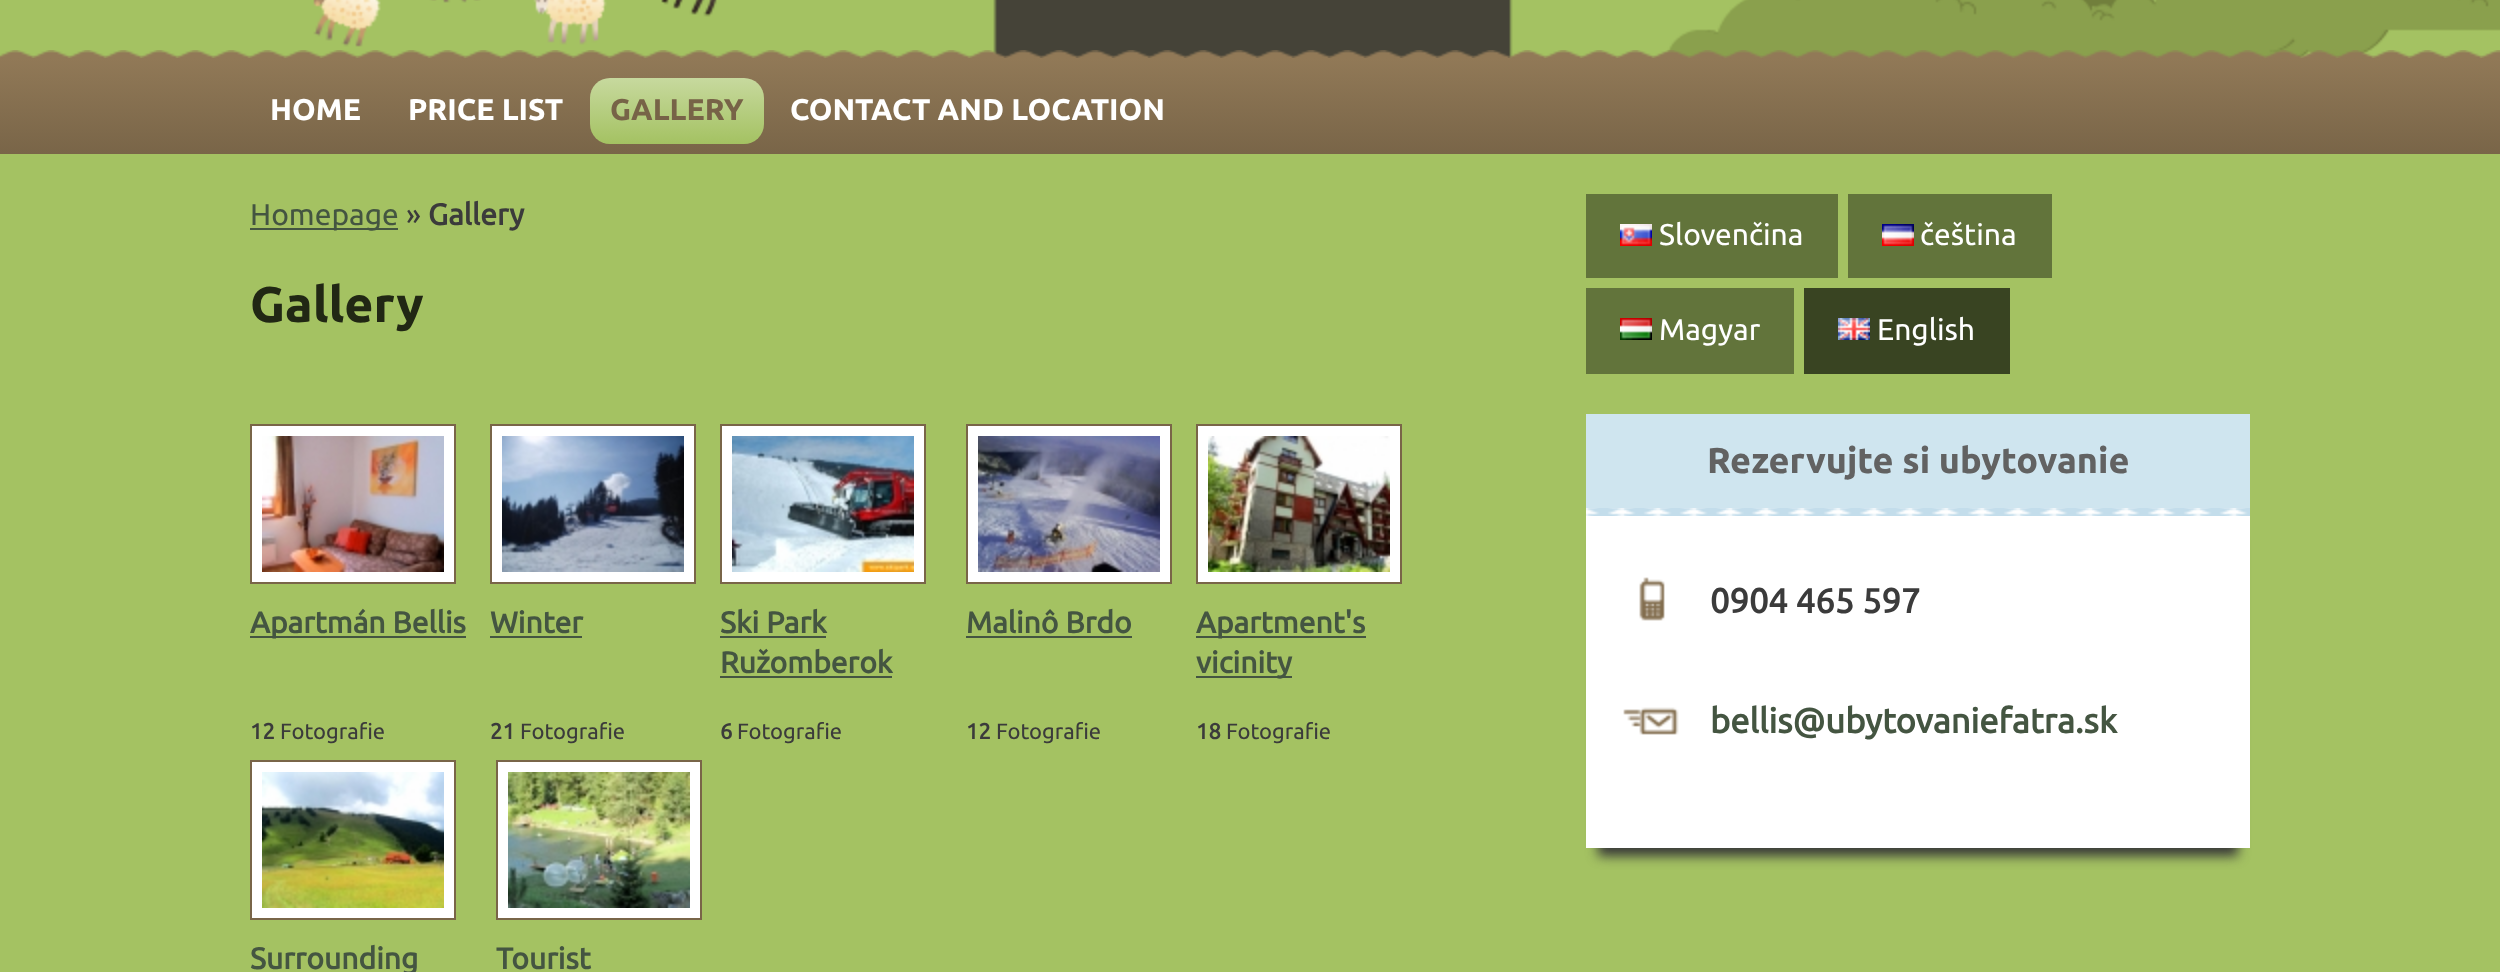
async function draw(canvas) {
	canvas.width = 2500;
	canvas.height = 972;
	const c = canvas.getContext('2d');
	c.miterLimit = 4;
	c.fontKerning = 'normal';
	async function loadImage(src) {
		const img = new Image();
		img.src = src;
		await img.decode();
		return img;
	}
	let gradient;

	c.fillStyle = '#a4c262';
	c.fillRect(0, 0, 2500, 972);
	c.drawImage(await loadImage('img1.png'), 313, 0, 2187, 58);
	c.drawImage(await loadImage('img2.png'), 993, 0, 520, 58);
	c.drawImage(await loadImage('img3.png'), 0, 50, 2500, 8);
	gradient = c.createLinearGradient(1250, 58, 1250, 154);
	gradient.addColorStop(0, '#917957');
	gradient.addColorStop(1, '#796548');
	c.fillStyle = gradient;
	c.fillRect(0, 58, 2500, 96);
	c.font = 'bold 30px Ubuntu';
	c.fillStyle = '#fff';
	c.fillText('HOME', 270, 120);
	c.fillText('PRICE LIST', 408, 120);
	gradient = c.createLinearGradient(677, 78, 677, 144);
	gradient.addColorStop(0, '#c7d99e');
	gradient.addColorStop(1, '#a4c262');
	c.fillStyle = gradient;
	c.beginPath();
	c.roundRect(590, 78, 174, 66, 20);
	c.fill();
	c.fillStyle = '#776347';
	c.fillText('GALLERY', 610, 120);
	c.fillStyle = '#fff';
	c.fillText('CONTACT AND LOCATION', 790, 120);
	c.fillStyle = '#445541';
	c.fillRect(250, 228, 148, 2);
	c.font = '30px Ubuntu';
	c.fillText('Homepage', 250, 225);
	c.fillStyle = '#3b3b3b';
	c.fillText('»', 406, 225);
	c.font = 'bold 30px "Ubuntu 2"';
	c.fillText('Gallery', 428, 225);
	c.font = 'bold 50px Ubuntu';
	c.fillStyle = '#212714';
	c.fillText('Gallery', 250, 322);
	c.fillStyle = '#fff';
	c.beginPath();
	c.rect(251, 425, 204, 158);
	c.fill();
	c.strokeStyle = '#796548';
	c.lineWidth = 2;
	c.stroke();
	c.drawImage(await loadImage('img4.png'), 262, 436, 182, 136);
	c.fillStyle = '#445541';
	c.fillRect(250, 636, 216, 2);
	c.font = 'bold 30px "Ubuntu 2"';
	c.fillText('Apartmán Bellis', 250, 633);
	c.font = 'bold 22px "Ubuntu 2"';
	c.fillStyle = '#3b3b3b';
	c.fillText('12', 250, 739);
	c.font = '22px Ubuntu';
	c.fillText('Fotografie', 280, 739);
	c.fillStyle = '#fff';
	c.beginPath();
	c.rect(491, 425, 204, 158);
	c.fill();
	c.stroke();
	c.drawImage(await loadImage('img5.png'), 502, 436, 182, 136);
	c.font = 'bold 30px "Ubuntu 2"';
	c.fillStyle = '#445541';
	c.fillText('Winter', 490, 633);
	c.fillRect(490, 636, 92, 2);
	c.font = 'bold 22px "Ubuntu 2"';
	c.fillStyle = '#3b3b3b';
	c.fillText('21', 490, 739);
	c.font = '22px Ubuntu';
	c.fillText('Fotografie', 520, 739);
	c.fillStyle = '#fff';
	c.beginPath();
	c.rect(721, 425, 204, 158);
	c.fill();
	c.stroke();
	c.drawImage(await loadImage('img6.png'), 732, 436, 182, 136);
	c.font = 'bold 30px "Ubuntu 2"';
	c.fillStyle = '#445541';
	c.fillText('Ski Park', 720, 633);
	c.fillRect(720, 636, 106, 2);
	c.fillText('Ružomberok', 720, 673);
	c.fillRect(720, 676, 172, 2);
	c.font = 'bold 22px "Ubuntu 2"';
	c.fillStyle = '#3b3b3b';
	c.fillText('6', 720, 739);
	c.font = '22px Ubuntu';
	c.fillText('Fotografie', 737, 739);
	c.fillStyle = '#fff';
	c.beginPath();
	c.rect(967, 425, 204, 158);
	c.fill();
	c.stroke();
	c.drawImage(await loadImage('img7.png'), 978, 436, 182, 136);
	c.font = 'bold 30px "Ubuntu 2"';
	c.fillStyle = '#445541';
	c.fillText('Malinô Brdo', 966, 633);
	c.fillRect(966, 636, 166, 2);
	c.font = 'bold 22px "Ubuntu 2"';
	c.fillStyle = '#3b3b3b';
	c.fillText('12', 966, 739);
	c.font = '22px Ubuntu';
	c.fillText('Fotografie', 996, 739);
	c.fillStyle = '#fff';
	c.beginPath();
	c.rect(1197, 425, 204, 158);
	c.fill();
	c.stroke();
	c.drawImage(await loadImage('img8.png'), 1208, 436, 182, 136);
	c.fillStyle = '#445541';
	c.fillRect(1196, 636, 170, 2);
	c.font = 'bold 30px "Ubuntu 2"';
	c.fillText('Apartment\'s', 1196, 633);
	c.fillRect(1196, 676, 96, 2);
	c.fillText('vicinity', 1196, 673);
	c.font = 'bold 22px "Ubuntu 2"';
	c.fillStyle = '#3b3b3b';
	c.fillText('18', 1196, 739);
	c.font = '22px Ubuntu';
	c.fillText('Fotografie', 1226, 739);
	c.fillStyle = '#fff';
	c.beginPath();
	c.rect(251, 761, 204, 158);
	c.fill();
	c.stroke();
	c.drawImage(await loadImage('img9.png'), 262, 772, 182, 136);
	c.font = 'bold 30px "Ubuntu 2"';
	c.fillStyle = '#445541';
	c.fillText('Surrounding', 250, 969);
	c.fillStyle = '#fff';
	c.beginPath();
	c.rect(497, 761, 204, 158);
	c.fill();
	c.stroke();
	c.drawImage(await loadImage('img10.png'), 508, 772, 182, 136);
	c.fillStyle = '#445541';
	c.fillText('Tourist', 496, 969);
	c.fillStyle = '#62743b';
	c.fillRect(1586, 194, 252, 84);
	c.drawImage(await loadImage('img11.png'), 1620, 224, 32, 22);
	c.font = '30px Ubuntu';
	c.fillStyle = '#fff';
	c.fillText('Slovenčina', 1659, 245);
	c.fillStyle = '#62743b';
	c.fillRect(1848, 194, 204, 84);
	c.drawImage(await loadImage('img12.png'), 1882, 224, 32, 22);
	c.fillStyle = '#fff';
	c.fillText('čeština', 1920, 245);
	c.fillStyle = '#62743b';
	c.fillRect(1586, 288, 208, 86);
	c.drawImage(await loadImage('img13.png'), 1620, 318, 32, 22);
	c.fillStyle = '#fff';
	c.fillText('Magyar', 1659, 340);
	c.fillStyle = '#394422';
	c.fillRect(1804, 288, 206, 86);
	c.drawImage(await loadImage('img14.png'), 1838, 318, 32, 22);
	c.fillStyle = '#fff';
	c.fillText('English', 1877, 340);
	c.fillStyle = '#cfe5ef';
	c.fillRect(1586, 414, 664, 94);
	c.font = 'bold 36px Ubuntu';
	c.fillStyle = '#626262';
	c.fillText('Rezervujte si ubytovanie', 1707, 473);
	c.fillStyle = '#383838';
	c.filter = 'blur(6px)';
	c.beginPath();
	c.rect(1598, 540, 640, 316);
	c.fill();
	c.filter = 'none';
	c.fillStyle = '#fff';
	c.fillRect(1586, 508, 664, 340);
	c.drawImage(await loadImage('img15.png'), 1586, 508, 664, 8);
	c.drawImage(await loadImage('img16.png'), 1639, 577, 26, 44);
	c.font = 'bold 34.5px "Ubuntu 2"';
	c.fillStyle = '#3b3b3b';
	c.fillText('0904 465 597', 1710, 613);
	c.drawImage(await loadImage('img17.png'), 1623, 707, 56, 28);
	c.fillStyle = '#445541';
	c.fillText('bellis@ubytovaniefatra.sk', 1710, 733);
}

draw(document.querySelector('canvas'));
